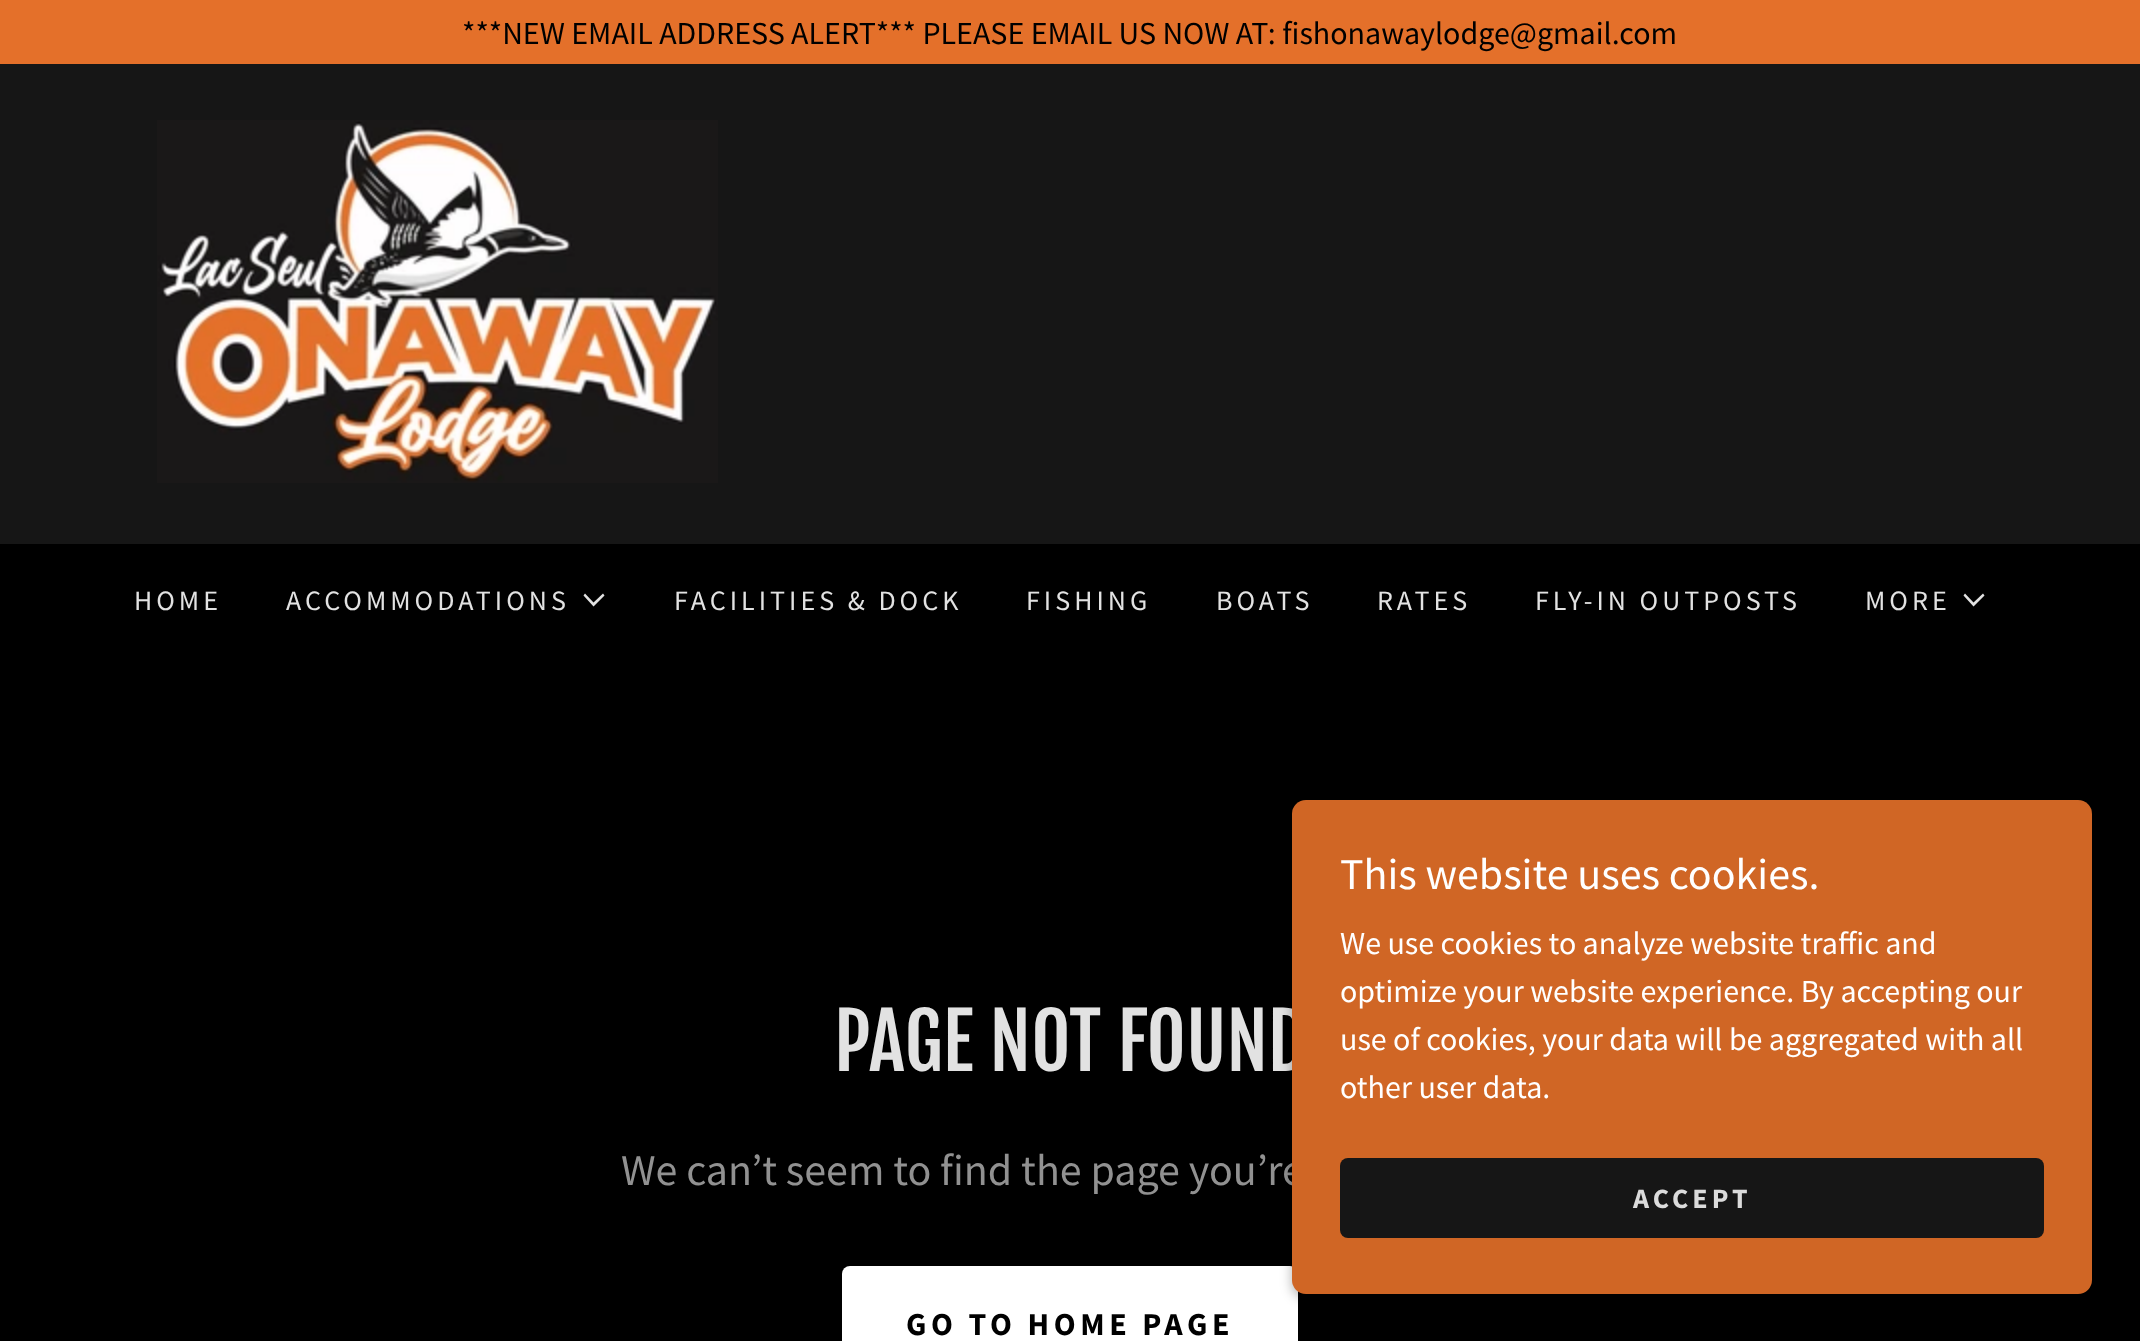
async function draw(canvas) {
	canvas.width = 2140;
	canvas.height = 1341;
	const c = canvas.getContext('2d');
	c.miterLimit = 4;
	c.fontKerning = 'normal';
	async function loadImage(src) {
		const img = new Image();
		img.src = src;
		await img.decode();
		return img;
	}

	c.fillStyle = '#000';
	c.fillRect(0, 0, 2140, 1341);
	c.fillStyle = '#161616';
	c.fillRect(0, 64, 2140, 480);
	c.fillStyle = '#e4702a';
	c.fillRect(0, 0, 2140, 64);
	c.font = '32px Source Sans Pro';
	c.fillStyle = '#000';
	c.fillText('***NEW EMAIL ADDRESS ALERT*** PLEASE EMAIL US NOW AT: fishonawaylodge@gmail.com', 462, 44);
	c.drawImage(await loadImage('img1.png'), 157, 120, 561, 363);
	c.letterSpacing = '4px';
	c.font = '28px Source Sans Pro';
	c.fillStyle = '#e2e2e2';
	c.fillText('HOME', 134, 610);
	c.fillText('ACCOMMODATIONS', 286, 610);
	c.beginPath();
	c.moveTo(603, 593.5);
	c.lineTo(593.5, 602.5);
	c.lineTo(585, 593.5);
	c.lineTo(583.5, 595.5);
	c.lineTo(593.5, 606.5);
	c.lineTo(604.5, 595.5);
	c.closePath();
	c.fill('evenodd');
	for (const [text, x, y] of [
		['FACILITIES & DOCK', 674, 610],
		['FISHING', 1026, 610],
		['BOATS', 1216, 610],
		['RATES', 1377, 610],
		['FLY-IN OUTPOSTS', 1535, 610],
		['MORE', 1865, 610],
	]) {
		c.fillText(text, x, y);
	}
	c.beginPath();
	c.moveTo(1983, 593.5);
	c.lineTo(1973.5, 602.5);
	c.lineTo(1965, 593.5);
	c.lineTo(1963.5, 595.5);
	c.lineTo(1973.5, 606.5);
	c.lineTo(1984.5, 595.5);
	c.closePath();
	c.fill('evenodd');
	c.letterSpacing = '0px';
	c.font = '76px Fjalla One';
	c.fillText('PAGE NOT FOUND', 834, 1071);
	c.font = '44px Source Sans Pro';
	c.fillStyle = '#919191';
	c.fillText('We can’t seem to find the page you’re', 621, 1185);
	c.fillStyle = '#fff';
	c.beginPath();
	c.roundRect(842, 1266, 456, 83, 8);
	c.fill();
	c.letterSpacing = '4.6px';
	c.font = 'bold 32px Source Sans Pro';
	c.fillStyle = '#000';
	c.fillText('GO TO HOME PAGE', 906, 1335);
	c.fillStyle = '#0000004d';
	c.filter = 'blur(6px)';
	c.beginPath();
	c.roundRect(1292, 804, 800, 494, 14);
	c.fill();
	c.filter = 'none';
	c.fillStyle = '#d06625';
	c.beginPath();
	c.roundRect(1292, 800, 800, 494, 14);
	c.fill();
	c.letterSpacing = '0px';
	c.font = '44px Source Sans Pro';
	c.fillStyle = '#fff';
	c.fillText('This website uses cookies.', 1340, 889);
	c.font = '32px Source Sans Pro';
	for (const [text, x, y] of [
		['We use cookies to analyze website traffic and', 1340, 954],
		['optimize your website experience. By accepting our', 1340, 1002],
		['use of cookies, your data will be aggregated with all', 1340, 1050],
		['other user data.', 1340, 1098],
	]) {
		c.fillText(text, x, y);
	}
	c.fillStyle = '#161616';
	c.beginPath();
	c.roundRect(1340, 1158, 704, 80, 8);
	c.fill();
	c.letterSpacing = '4px';
	c.font = 'bold 28px Source Sans Pro';
	c.fillStyle = '#dbdbdb';
	c.fillText('ACCEPT', 1633, 1208);
}

draw(document.querySelector('canvas'));
